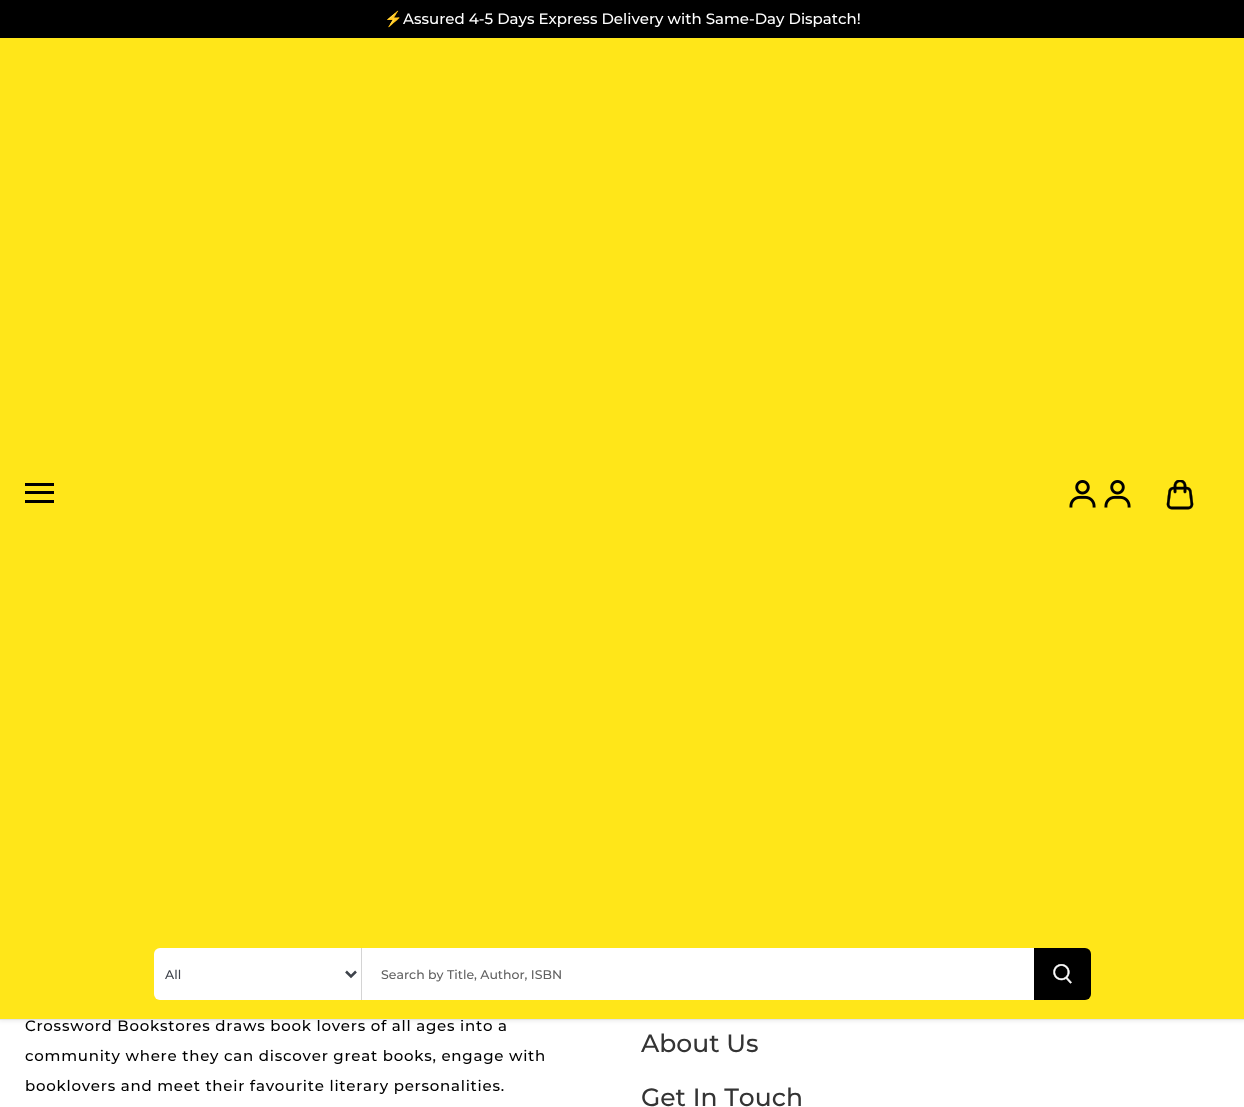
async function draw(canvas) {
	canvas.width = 1244;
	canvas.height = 1107;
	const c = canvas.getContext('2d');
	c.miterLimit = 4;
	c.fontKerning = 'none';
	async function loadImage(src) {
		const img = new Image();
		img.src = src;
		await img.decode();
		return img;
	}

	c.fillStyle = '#fff';
	c.fillRect(0, 0, 1244, 1107);
	c.fillStyle = '#000';
	c.fillRect(0, 0, 1244, 38);
	c.font = '15px Noto Color Emoji';
	c.fillStyle = '#fff';
	c.fillText('⚡', 384, 24);
	c.font = '500 15px Montserrat';
	c.fillText('Assured 4-5 Days Express Delivery with Same-Day Dispatch!', 403, 24);
	c.fillStyle = '#00000014';
	c.filter = 'blur(2px)';
	c.beginPath();
	c.rect(-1, 36, 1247, 985);
	c.fill();
	c.filter = 'none';
	c.fillStyle = '#ffe619';
	c.fillRect(0, 38, 1244, 981);
	c.letterSpacing = '0.75px';
	c.fillStyle = '#000';
	c.fillText('Crossword Bookstores draws book lovers of all ages into a', 25, 1031);
	for (const [x, y, w, h, color] of [
		[0, 1019, 1244, 1, '#e1e5e9'],
		[25, 483, 29, 3, '#000'],
		[25, 491, 29, 3, '#000'],
		[25, 500, 29, 3, '#000'],
	]) {
		c.fillStyle = color;
		c.fillRect(x, y, w, h);
	}
	c.drawImage(await loadImage('img1.png'), 1069, 480, 27, 28);
	c.drawImage(await loadImage('img1.png'), 1104, 480, 27, 28);
	c.drawImage(await loadImage('img2.png'), 1166, 480, 28, 30);
	c.fillStyle = '#fff';
	c.beginPath();
	c.roundRect(154, 948, 209, 52, [6, 0, 0, 6]);
	c.fill();
	c.fillStyle = '#d4d4d4';
	c.fillRect(361, 948, 1, 52);
	c.beginPath();
	c.moveTo(346, 971.5);
	c.lineTo(351, 976.5);
	c.lineTo(356, 971.5);
	c.strokeStyle = '#3e434b';
	c.lineWidth = 2.5;
	c.stroke();
	c.letterSpacing = '0px';
	c.font = '500 12.5px Montserrat';
	c.fillStyle = '#3e434b';
	c.fillText('All', 165, 979);
	c.fillStyle = '#fff';
	c.fillRect(363, 948, 671, 52);
	c.fillStyle = '#616161';
	c.fillText('Search by Title, Author, ISBN', 381, 979);
	c.fillStyle = '#000';
	c.beginPath();
	c.roundRect(1034, 948, 57, 52, [0, 6, 6, 0]);
	c.fill();
	c.drawImage(await loadImage('img3.png'), 1053, 964, 19, 20);
	c.letterSpacing = '0.75px';
	c.font = '500 15px Montserrat';
	c.fillText('community where they can discover great books, engage with', 25, 1061);
	c.fillText('booklovers and meet their favourite literary personalities.', 25, 1091);
	c.letterSpacing = '0px';
	c.font = '500 25px Montserrat';
	c.fillStyle = '#343434';
	c.fillText('About Us', 641, 1052);
	c.fillText('Get In Touch', 641, 1106);
}

draw(document.querySelector('canvas'));
